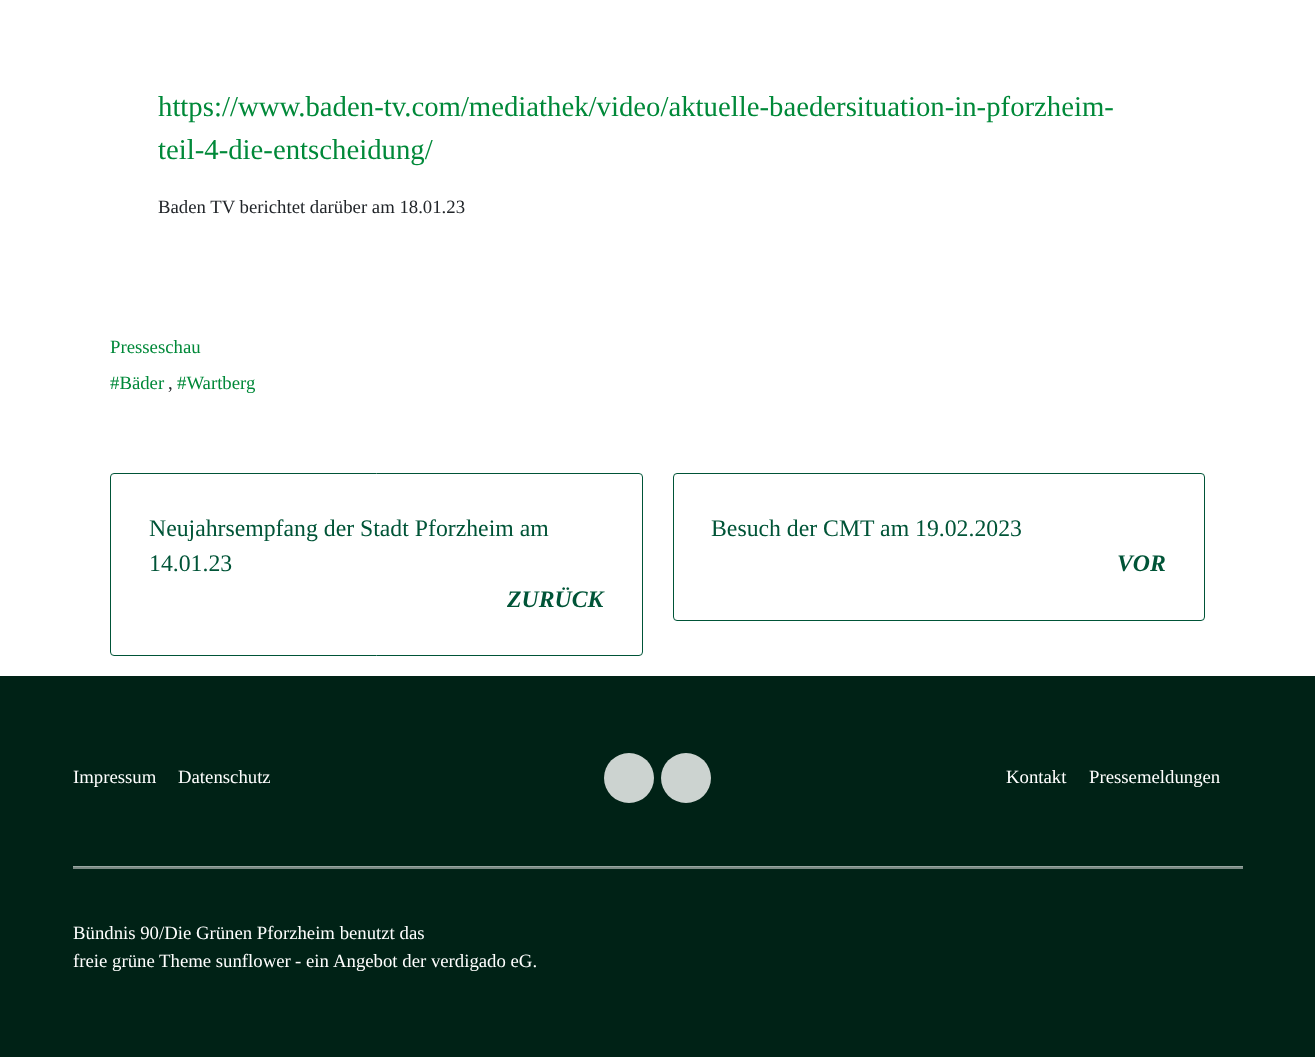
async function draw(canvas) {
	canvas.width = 1315;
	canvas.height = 1057;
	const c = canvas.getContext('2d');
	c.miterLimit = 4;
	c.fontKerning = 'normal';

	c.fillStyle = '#fff';
	c.fillRect(0, 0, 1315, 1057);
	c.font = '28.75px Liberation Serif';
	c.fillStyle = '#008939';
	c.fillText('https://www.baden-tv.com/mediathek/video/aktuelle-baedersituation-in-pforzheim-', 158, 116);
	c.fillText('teil-4-die-entscheidung/', 158, 159);
	c.font = '18.75px Liberation Serif';
	c.fillStyle = '#212529';
	c.fillText('Baden TV berichtet darüber am 18.01.23', 158, 213);
	c.fillStyle = '#008939';
	c.fillText('Presseschau', 110, 353);
	c.fillText('#Bäder', 110, 389);
	c.fillStyle = '#212529';
	c.fillText(',', 168, 389);
	c.fillStyle = '#008939';
	c.fillText('#Wartberg', 177, 389);
	c.beginPath();
	c.roundRect(110.5, 473.5, 532, 182, 3.5);
	c.strokeStyle = '#005437';
	c.stroke();
	c.font = '23.75px Liberation Serif';
	c.fillStyle = '#005437';
	c.fillText('Neujahrsempfang der Stadt Pforzheim am', 149, 536);
	c.fillText('14.01.23', 149, 571);
	c.font = 'italic bold 23.75px Liberation Serif';
	c.fillText('ZURÜCK', 507, 607);
	c.beginPath();
	c.roundRect(673.5, 473.5, 531, 147, 3.5);
	c.stroke();
	c.font = '23.75px Liberation Serif';
	c.fillText('Besuch der CMT am 19.02.2023', 711, 536);
	c.font = 'italic bold 23.75px Liberation Serif';
	c.fillText('VOR', 1117, 571);
	c.fillStyle = '#002216';
	c.fillRect(0, 676, 1315, 381);
	c.font = '18.75px Liberation Serif';
	c.fillStyle = '#fff';
	c.fillText('Impressum', 73, 783);
	c.fillText('Datenschutz', 178, 783);
	c.fillStyle = '#ccd3d0';
	c.beginPath();
	c.arc(629, 778, 25, 0, 2 * Math.PI);
	c.fill();
	c.beginPath();
	c.arc(686, 778, 25, 0, 2 * Math.PI);
	c.fill();
	c.fillStyle = '#fff';
	c.fillText('Kontakt', 1006, 783);
	c.fillText('Pressemeldungen', 1089, 783);
	c.fillStyle = '#7a8883';
	c.fillRect(73, 867, 1170, 2);
	c.fillStyle = '#99a7a2';
	c.fillRect(73, 866, 1170, 1);
	c.fillStyle = '#fff';
	for (const [text, x, y] of [
		['Bündnis 90/Die Grünen Pforzheim benutzt das', 73, 939],
		['freie grüne Theme sunflower', 73, 967],
		['‐ ein', 295, 967],
		['Angebot der verdigado eG.', 333, 967],
	]) {
		c.fillText(text, x, y);
	}
}

draw(document.querySelector('canvas'));
